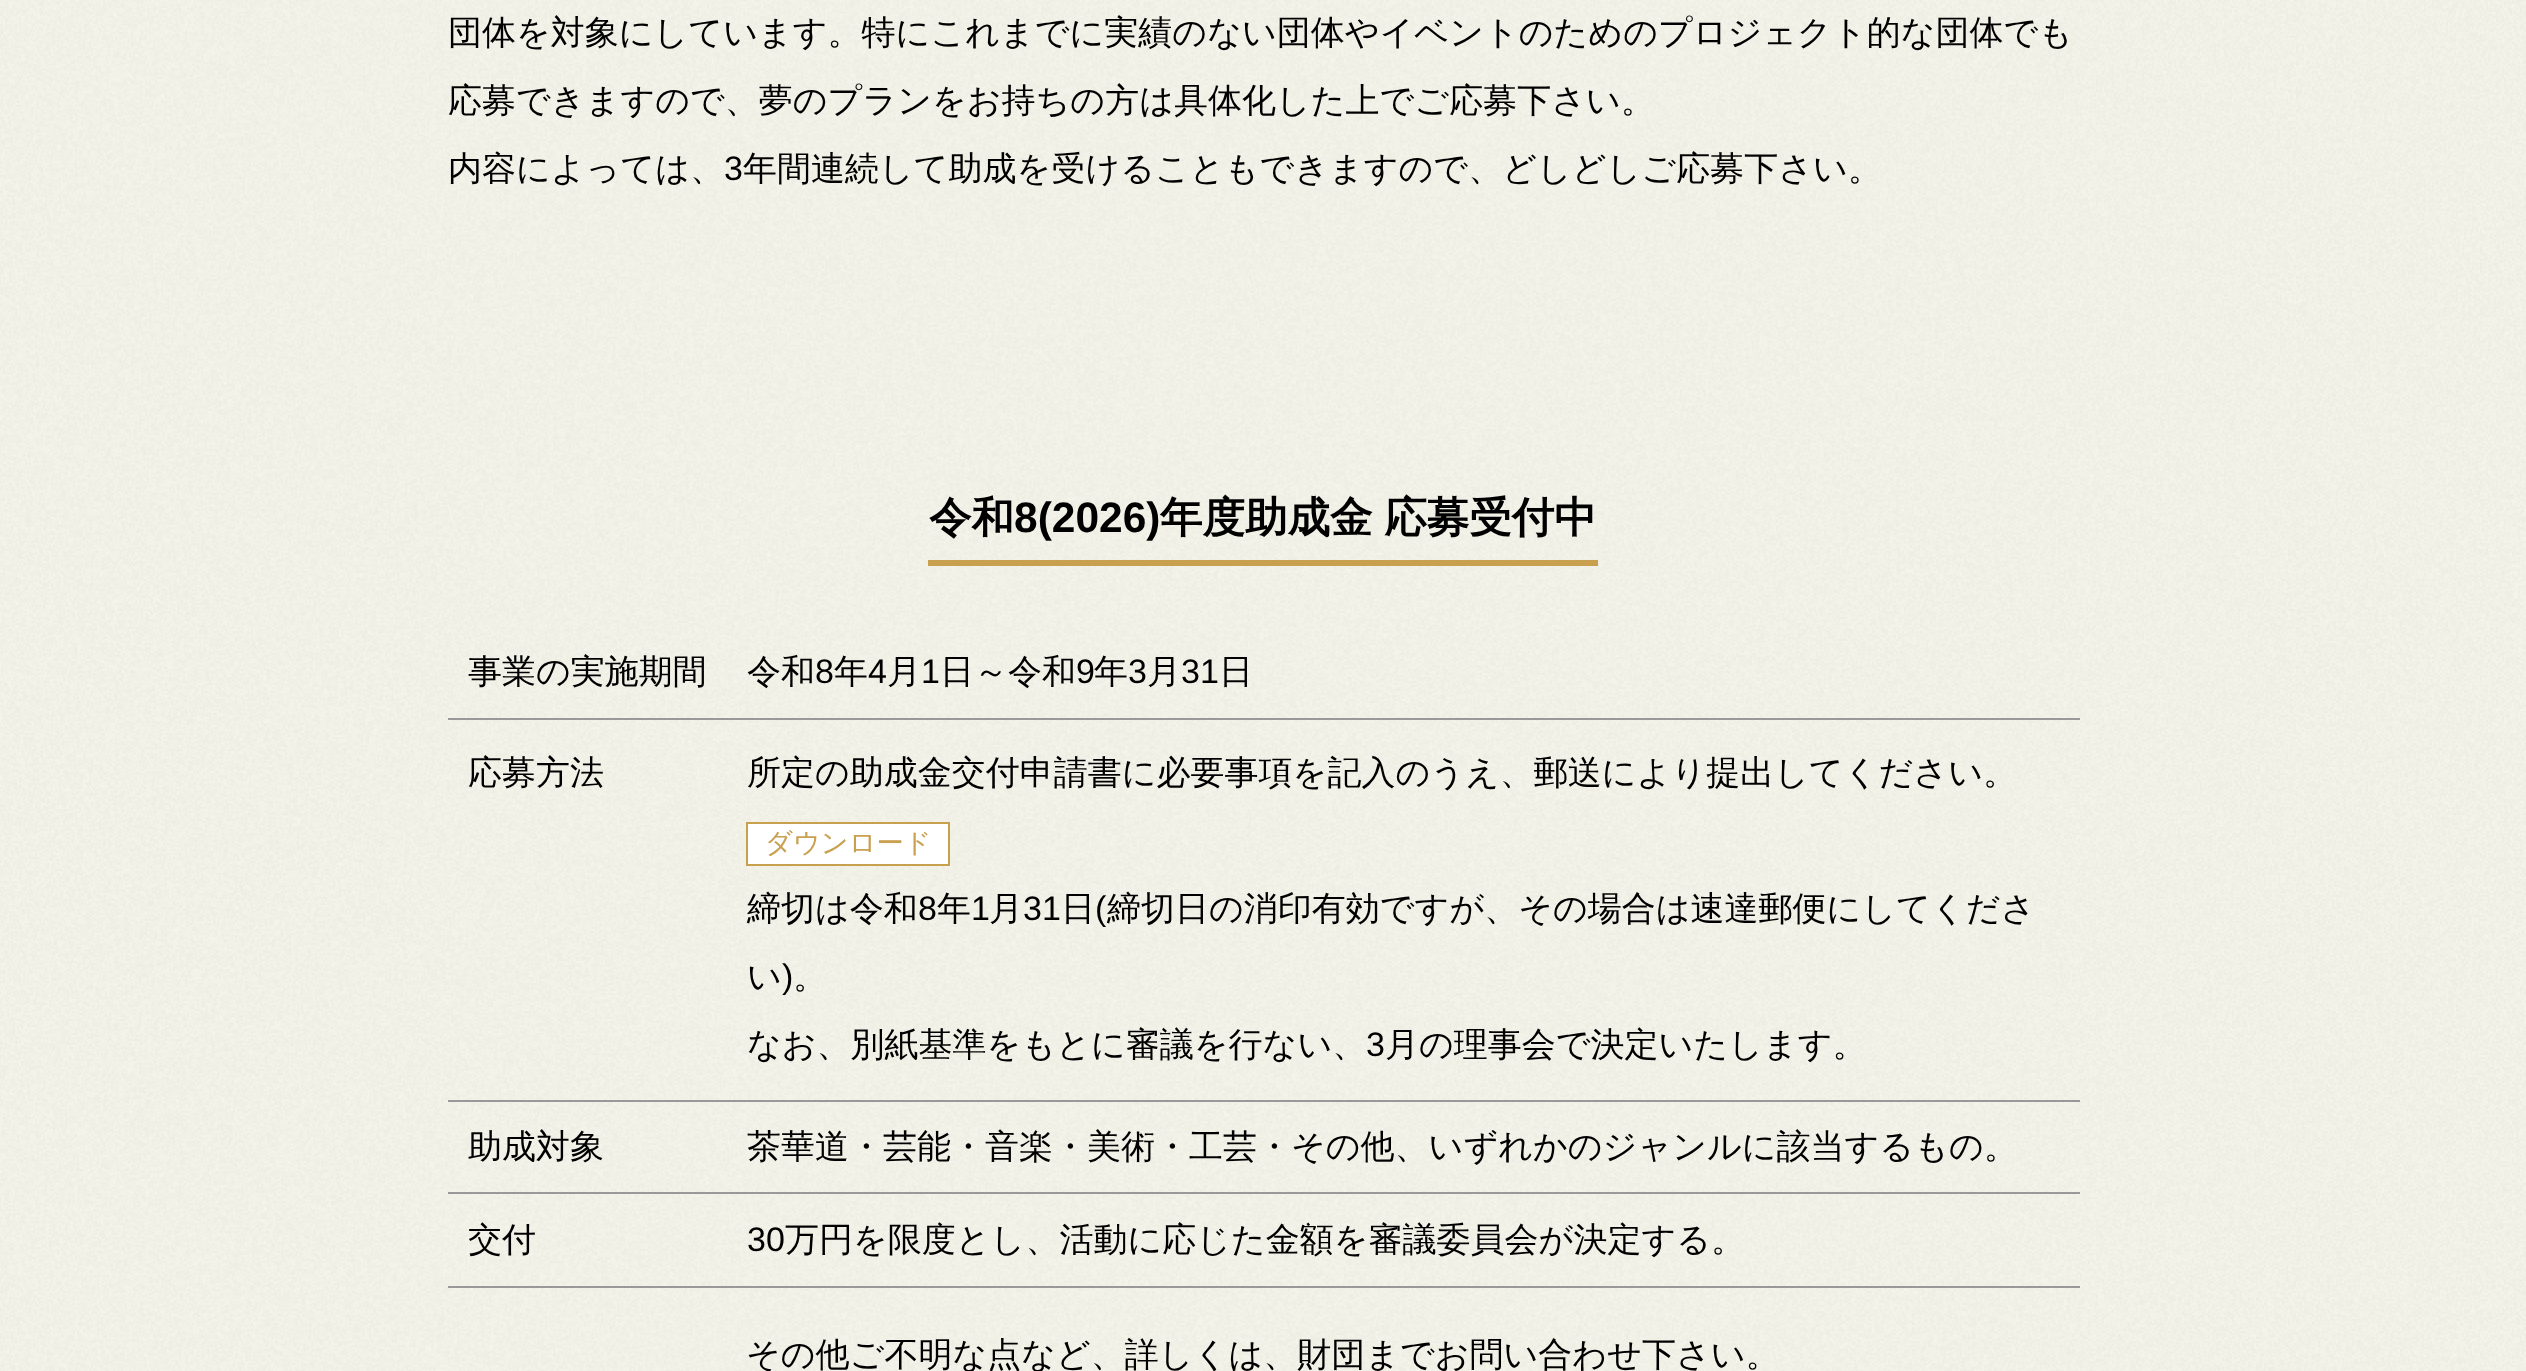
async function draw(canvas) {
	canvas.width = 2526;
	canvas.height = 1371;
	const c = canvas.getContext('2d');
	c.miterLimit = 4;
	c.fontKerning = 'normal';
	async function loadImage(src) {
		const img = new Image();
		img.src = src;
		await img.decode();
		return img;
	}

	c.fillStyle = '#fff';
	c.fillRect(0, 0, 2526, 1371);
	c.drawImage(await loadImage('img1.png'), 0, 0, 2526, 1371);
	c.font = '500 34px WenQuanYi Zen Hei';
	c.fillStyle = '#000';
	for (const [text, x, y] of [
		['団体を対象にしています。特にこれまでに実績のない団体やイベントのためのプロジェクト的な団体でも', 448, 44],
		['応募できますので、夢のプランをお持ちの方は具体化した上でご応募下さい。', 448, 112],
		['内容によっては、', 448, 180],
	]) {
		c.fillText(text, x, y);
	}
	c.font = '34px Liberation Sans';
	c.fillText('3', 724, 180);
	c.font = '500 34px WenQuanYi Zen Hei';
	c.fillText('年間連続して助成を受けることもできますので、どしどしご応募下さい。', 743, 180);
	c.fillStyle = '#c8a050';
	c.fillRect(928, 560, 670, 6);
	c.font = 'bold 42.5px WenQuanYi Zen Hei';
	c.fillStyle = '#000';
	c.fillText('令和', 929, 532);
	c.font = 'bold 42.5px Liberation Sans';
	c.fillText('8(2026)', 1014, 532);
	c.wordSpacing = '-1px';
	c.font = 'bold 42.5px WenQuanYi Zen Hei';
	c.fillText('年度助成金 応募受付中', 1160, 532);
	c.wordSpacing = '0px';
	c.font = '500 34px WenQuanYi Zen Hei';
	c.fillText('事業の実施期間', 468, 683);
	c.fillStyle = '#999';
	c.fillRect(448, 718, 1632, 2);
	c.fillStyle = '#000';
	c.fillText('令和', 747, 683);
	c.font = '34px Liberation Sans';
	c.fillText('8', 815, 683);
	c.font = '500 34px WenQuanYi Zen Hei';
	c.fillText('年', 834, 683);
	c.font = '34px Liberation Sans';
	c.fillText('4', 868, 683);
	c.font = '500 34px WenQuanYi Zen Hei';
	c.fillText('月', 887, 683);
	c.font = '34px Liberation Sans';
	c.fillText('1', 921, 683);
	c.font = '500 34px WenQuanYi Zen Hei';
	c.fillText('日～令和', 940, 683);
	c.font = '34px Liberation Sans';
	c.fillText('9', 1076, 683);
	c.font = '500 34px WenQuanYi Zen Hei';
	c.fillText('年', 1094, 683);
	c.font = '34px Liberation Sans';
	c.fillText('3', 1128, 683);
	c.font = '500 34px WenQuanYi Zen Hei';
	c.fillText('月', 1147, 683);
	c.font = '34px Liberation Sans';
	c.fillText('31', 1181, 683);
	c.font = '500 34px WenQuanYi Zen Hei';
	c.fillText('日', 1219, 683);
	c.fillText('応募方法', 468, 784);
	c.fillStyle = '#999';
	c.fillRect(448, 1100, 1632, 2);
	c.fillStyle = '#000';
	c.fillText('所定の助成金交付申請書に必要事項を記入のうえ、郵送により提出してください。', 747, 784);
	c.fillStyle = '#fff';
	c.beginPath();
	c.rect(747, 823, 202, 42);
	c.fill();
	c.strokeStyle = '#c8a050';
	c.lineWidth = 2;
	c.stroke();
	c.font = '500 27.25px WenQuanYi Zen Hei';
	c.fillStyle = '#c8a050';
	c.fillText('ダウンロード', 765, 852);
	c.font = '500 34px WenQuanYi Zen Hei';
	c.fillStyle = '#000';
	c.fillText('締切は令和', 747, 920);
	c.font = '34px Liberation Sans';
	c.fillText('8', 918, 920);
	c.font = '500 34px WenQuanYi Zen Hei';
	c.fillText('年', 937, 920);
	c.font = '34px Liberation Sans';
	c.fillText('1', 971, 920);
	c.font = '500 34px WenQuanYi Zen Hei';
	c.fillText('月', 989, 920);
	c.font = '34px Liberation Sans';
	c.fillText('31', 1023, 920);
	c.font = '500 34px WenQuanYi Zen Hei';
	c.fillText('日', 1061, 920);
	c.font = '34px Liberation Sans';
	c.fillText('(', 1095, 920);
	c.font = '500 34px WenQuanYi Zen Hei';
	c.fillText('締切日の消印有効ですが、その場合は速達郵便にしてくださ', 1107, 920);
	c.fillText('い', 747, 988);
	c.font = '34px Liberation Sans';
	c.fillText(')', 782, 988);
	c.font = '500 34px WenQuanYi Zen Hei';
	c.fillText('。', 793, 988);
	c.fillText('なお、別紙基準をもとに審議を行ない、', 747, 1056);
	c.font = '34px Liberation Sans';
	c.fillText('3', 1366, 1056);
	c.font = '500 34px WenQuanYi Zen Hei';
	c.fillText('月の理事会で決定いたします。', 1385, 1056);
	c.fillText('助成対象', 468, 1158);
	c.fillStyle = '#999';
	c.fillRect(448, 1192, 1632, 2);
	c.fillStyle = '#000';
	c.fillText('茶華道・芸能・音楽・美術・工芸・その他、いずれかのジャンルに該当するもの。', 747, 1158);
	c.fillText('交付', 468, 1251);
	c.fillStyle = '#999';
	c.fillRect(448, 1286, 1632, 2);
	c.font = '34px Liberation Sans';
	c.fillStyle = '#000';
	c.fillText('30', 747, 1251);
	c.font = '500 34px WenQuanYi Zen Hei';
	c.fillText('万円を限度とし、活動に応じた金額を審議委員会が決定する。', 785, 1251);
	c.fillText('その他ご不明な点など、詳しくは、財団までお問い合わせ下さい。', 746, 1366);
}

draw(document.querySelector('canvas'));
